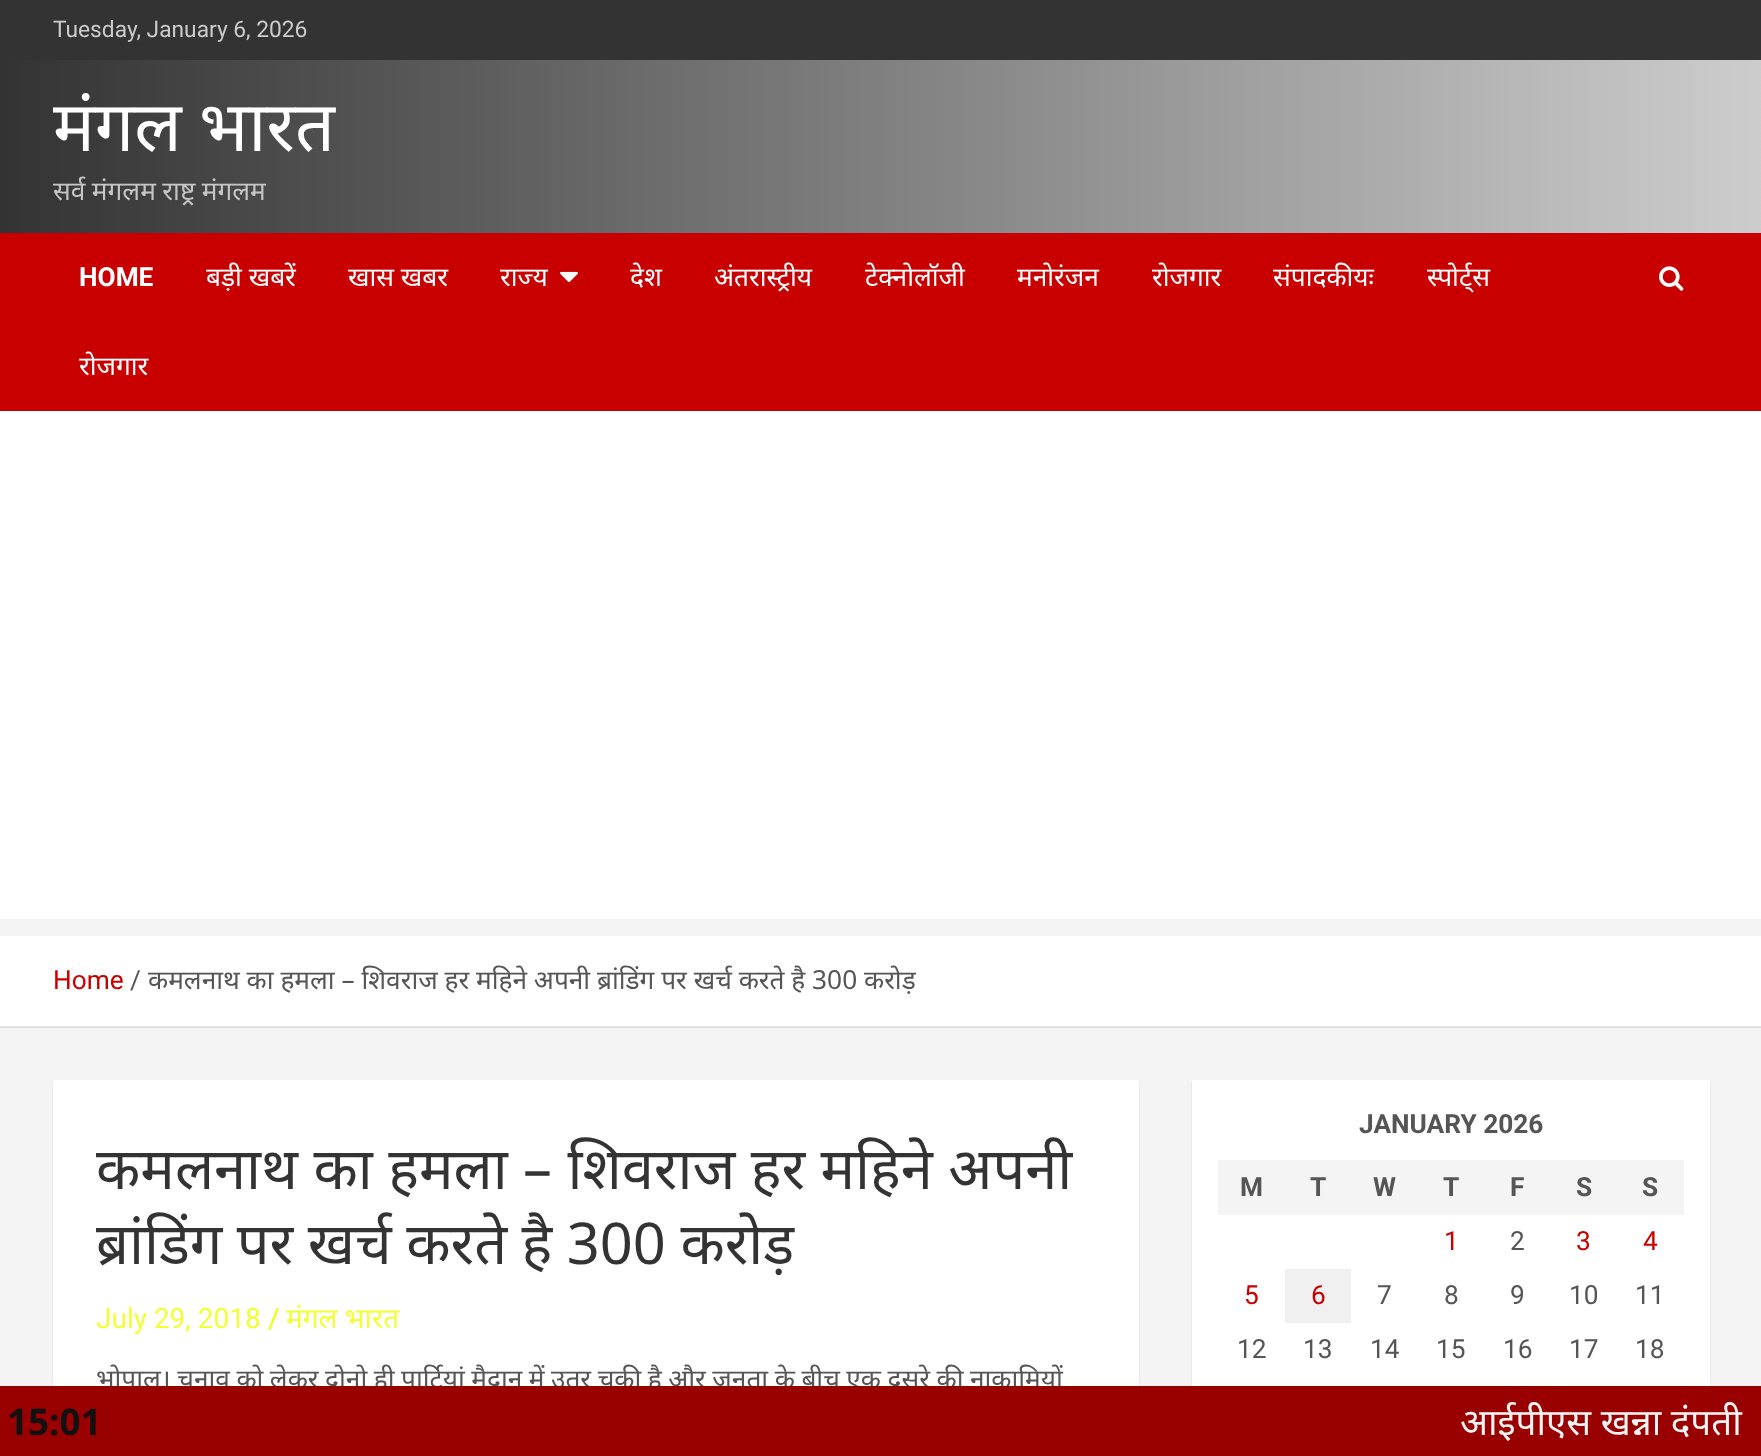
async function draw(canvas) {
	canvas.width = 1761;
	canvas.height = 1456;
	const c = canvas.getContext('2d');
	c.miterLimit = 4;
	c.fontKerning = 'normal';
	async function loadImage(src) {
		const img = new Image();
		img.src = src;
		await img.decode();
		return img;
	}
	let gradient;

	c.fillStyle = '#f4f4f4';
	c.fillRect(0, 0, 1761, 1456);
	c.fillStyle = '#dcdcdc';
	c.fillRect(0, 1027, 1761, 1);
	c.fillStyle = '#333';
	c.fillRect(0, 0, 1761, 60);
	c.font = '22.75px Roboto';
	c.fillStyle = '#ccc';
	c.fillText('Tuesday, January 6, 2026', 53, 37);
	c.fillStyle = '#fff';
	c.fillRect(0, 411, 1761, 508);
	gradient = c.createLinearGradient(0, 146, 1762, 146);
	gradient.addColorStop(0, '#333');
	gradient.addColorStop(1, '#cdcdcd');
	c.fillStyle = gradient;
	c.fillRect(0, 60, 1761, 173);
	c.wordSpacing = '-1px';
	c.font = '70px Noto Sans';
	c.fillStyle = '#fff';
	c.fillText('मंगल भारत', 53, 151);
	c.wordSpacing = '-0.3px';
	c.font = '26.25px Noto Sans';
	c.fillStyle = '#c6c6c6';
	c.fillText('सर्व मंगलम राष्ट्र मंगलम', 53, 200);
	c.fillStyle = '#c80000';
	c.fillRect(0, 233, 1761, 178);
	c.wordSpacing = '0px';
	c.font = 'bold 26.25px Roboto';
	c.fillStyle = '#fff';
	c.fillText('HOME', 79, 286);
	c.font = '26.25px Noto Sans';
	for (const [text, x, y] of [
		['बड़ी खबरें', 206, 286],
		['खास खबर', 348, 286],
		['राज्य', 500, 286],
	]) {
		c.fillText(text, x, y);
	}
	c.drawImage(await loadImage('img1.png'), 560, 271, 18, 11);
	for (const [text, x, y] of [
		['देश', 630, 286],
		['अंतरास्ट्रीय', 714, 286],
		['टेक्नोलॉजी', 865, 286],
		['मनोरंजन', 1017, 286],
		['रोजगार', 1152, 286],
		['संपादकीयः', 1273, 286],
		['स्पोर्ट्स', 1427, 286],
		['रोजगार', 79, 375],
	]) {
		c.fillText(text, x, y);
	}
	c.drawImage(await loadImage('img2.png'), 1659, 266, 25, 25);
	c.fillRect(0, 936, 1761, 90);
	c.fillStyle = '#e6e6e6';
	c.fillRect(0, 1026, 1761, 1);
	c.font = '26.25px Roboto';
	c.fillStyle = '#c80000';
	c.fillText('Home', 53, 989);
	c.fillStyle = '#555';
	c.fillText('/', 130, 989);
	c.font = '26.25px Noto Sans';
	c.fillText('कमलनाथ का हमला – शिवराज हर महिने अपनी ब्रांडिंग पर खर्च करते है 300 करोड़', 148, 989);
	c.fillStyle = '#0000001a';
	c.filter = 'blur(1px)';
	c.beginPath();
	c.rect(53, 1082, 1086, 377);
	c.fill();
	c.filter = 'none';
	c.fillStyle = '#fff';
	c.fillRect(53, 1080, 1086, 306);
	c.wordSpacing = '0.5px';
	c.font = '57.75px Noto Sans';
	c.fillStyle = '#333';
	c.fillText('कमलनाथ का हमला – शिवराज हर महिने अपनी', 96, 1189);
	c.wordSpacing = '-0.5px';
	c.fillText('ब्रांडिंग पर खर्च करते है 300 करोड़', 96, 1264);
	c.wordSpacing = '0px';
	c.font = '28px Roboto';
	c.fillStyle = '#f3ff36';
	c.fillText('July 29, 2018', 96, 1328);
	c.fillStyle = '#f0ff04';
	c.fillText('/', 268, 1328);
	c.font = '28px Noto Sans';
	c.fillStyle = '#f3ff36';
	c.fillText('मंगल भारत', 286, 1328);
	c.wordSpacing = '-0.3px';
	c.font = '26.25px Noto Sans';
	c.fillStyle = '#555';
	c.fillText('भोपाल। चुनाव को लेकर दोनो ही पार्टियां मैदान में उतर चुकी है और जनता के बीच एक दुसरे की नाकामियों', 96, 1388);
	c.fillStyle = '#0000001a';
	c.filter = 'blur(1px)';
	c.beginPath();
	c.rect(1192, 1082, 518, 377);
	c.fill();
	c.filter = 'none';
	c.fillStyle = '#fff';
	c.fillRect(1192, 1080, 518, 306);
	c.wordSpacing = '0px';
	c.font = 'bold 26.25px Roboto';
	c.fillStyle = '#555';
	c.fillText('JANUARY 2026', 1359, 1133);
	c.fillStyle = '#f4f4f4';
	c.fillRect(1218, 1160, 466, 55);
	c.fillStyle = '#555';
	for (const [text, x, y] of [
		['M', 1240, 1196],
		['T', 1310, 1196],
		['W', 1373, 1196],
		['T', 1443, 1196],
		['F', 1510, 1196],
		['S', 1576, 1196],
		['S', 1642, 1196],
	]) {
		c.fillText(text, x, y);
	}
	c.font = '26.25px Roboto';
	c.fillStyle = '#c80000';
	c.fillText('1', 1444, 1250);
	c.fillStyle = '#555';
	c.fillText('2', 1510, 1250);
	c.fillStyle = '#c80000';
	for (const [text, x, y] of [
		['3', 1576, 1250],
		['4', 1643, 1250],
		['5', 1244, 1304],
	]) {
		c.fillText(text, x, y);
	}
	c.fillStyle = '#f0f0f0';
	c.fillRect(1285, 1269, 66, 54);
	c.fillStyle = '#c80000';
	c.fillText('6', 1311, 1304);
	c.fillStyle = '#555';
	for (const [text, x, y] of [
		['7', 1377, 1304],
		['8', 1444, 1304],
		['9', 1510, 1304],
		['10', 1569, 1304],
		['11', 1635, 1304],
		['12', 1237, 1358],
		['13', 1303, 1358],
		['14', 1370, 1358],
		['15', 1436, 1358],
		['16', 1503, 1358],
		['17', 1569, 1358],
		['18', 1635, 1358],
	]) {
		c.fillText(text, x, y);
	}
	c.fillStyle = '#900';
	c.fillRect(0, 1386, 1761, 70);
	c.font = 'bold 36.75px Open Sans';
	c.fillStyle = '#111';
	c.fillText('15:01', 7, 1435);
	c.font = '36.75px Noto Sans';
	c.fillStyle = '#f4f4f4';
	c.fillText('आईपीएस खन्ना दंपती', 1460, 1435);
}

draw(document.querySelector('canvas'));
